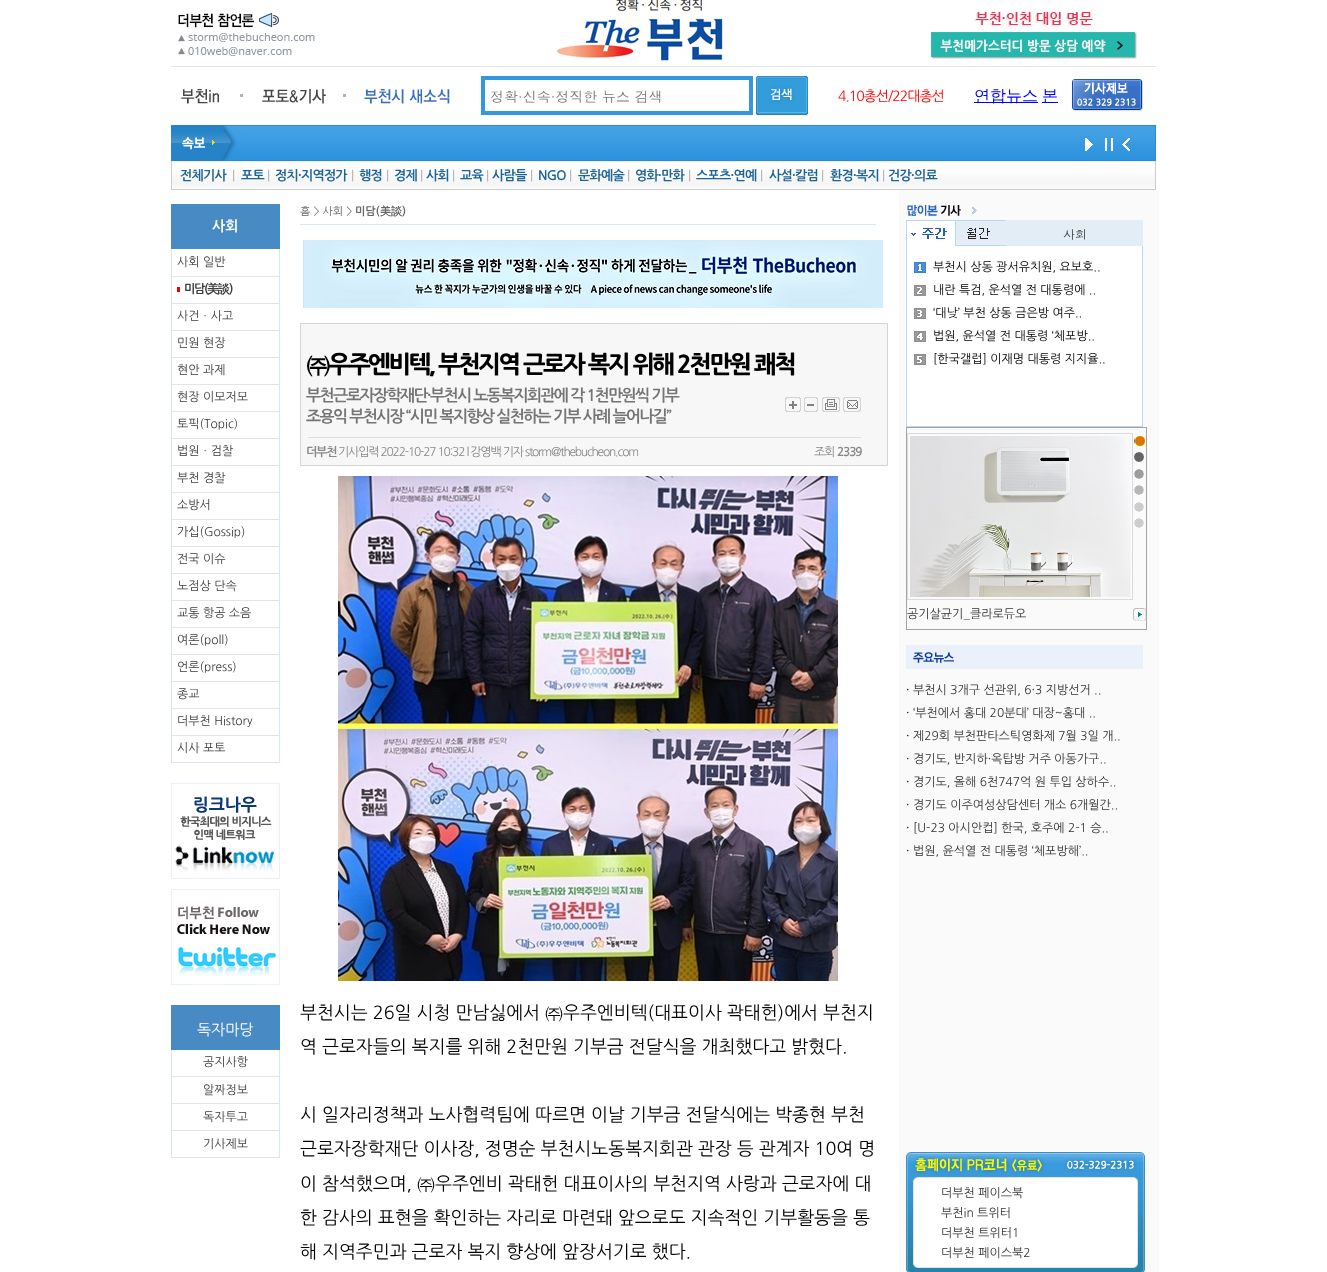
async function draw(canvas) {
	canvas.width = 1327;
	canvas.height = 1272;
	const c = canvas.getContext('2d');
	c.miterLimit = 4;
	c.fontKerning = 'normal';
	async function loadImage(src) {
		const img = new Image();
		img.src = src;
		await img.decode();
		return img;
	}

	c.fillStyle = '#fff';
	c.fillRect(0, 0, 1327, 1272);
	c.drawImage(await loadImage('img1.png'), 178, 13, 137, 43);
	c.drawImage(await loadImage('img2.png'), 557, 0, 166, 61);
	c.drawImage(await loadImage('img3.png'), 931, 12, 206, 47);
	c.fillStyle = '#e6e6e6';
	c.fillRect(171, 66, 985, 1);
	c.drawImage(await loadImage('img4.png'), 181, 89, 38, 15);
	c.fillStyle = '#b2b2b2';
	c.fillRect(240, 94, 3, 3);
	c.drawImage(await loadImage('img5.png'), 262, 89, 64, 15);
	c.fillRect(343, 94, 3, 3);
	c.drawImage(await loadImage('img6.png'), 364, 88, 86, 16);
	c.strokeStyle = '#3498e0';
	c.lineWidth = 4;
	c.strokeRect(483, 78, 268, 35);
	c.font = '14px Dotum';
	c.fillStyle = '#757575';
	c.fillText('정확·신속·정직한 뉴스 검색', 490, 102);
	c.drawImage(await loadImage('img7.png'), 756, 76, 52, 39);
	c.letterSpacing = '-1px';
	c.font = '14px NanumGothic';
	c.fillStyle = '#f00';
	c.fillText('4.10총선/22대총선', 838, 101);
	c.drawImage(await loadImage('img8.png'), 974, 89, 84, 15);
	c.drawImage(await loadImage('img9.png'), 1072, 79, 71, 33);
	c.drawImage(await loadImage('img10.png'), 171, 125, 985, 36);
	c.drawImage(await loadImage('img11.png'), 1085, 138, 8, 13);
	c.drawImage(await loadImage('img12.png'), 1105, 138, 8, 13);
	c.drawImage(await loadImage('img13.png'), 1122, 138, 8, 13);
	c.drawImage(await loadImage('img14.png'), 171, 161, 985, 29);
	c.letterSpacing = '-0.75px';
	c.font = 'bold 13px NanumGothic';
	c.fillStyle = '#1c6396';
	c.fillText('전체기사', 180, 180);
	c.font = '13px NanumGothic';
	c.fillStyle = '#aaa';
	c.fillText('|', 232, 180);
	c.font = 'bold 13px NanumGothic';
	c.fillStyle = '#1c6396';
	c.fillText('포토', 241, 180);
	c.font = '13px NanumGothic';
	c.fillStyle = '#aaa';
	c.fillText('|', 267, 180);
	c.font = 'bold 13px NanumGothic';
	c.fillStyle = '#1c6396';
	c.fillText('정치·지역정가', 275, 180);
	c.font = '13px NanumGothic';
	c.fillStyle = '#aaa';
	c.fillText('|', 351, 180);
	c.font = 'bold 13px NanumGothic';
	c.fillStyle = '#1c6396';
	c.fillText('행정', 359, 180);
	c.font = '13px NanumGothic';
	c.fillStyle = '#aaa';
	c.fillText('|', 386, 180);
	c.font = 'bold 13px NanumGothic';
	c.fillStyle = '#1c6396';
	c.fillText('경제', 394, 180);
	c.font = '13px NanumGothic';
	c.fillStyle = '#aaa';
	c.fillText('|', 420, 180);
	c.font = 'bold 13px NanumGothic';
	c.fillStyle = '#1c6396';
	c.fillText('사회', 426, 180);
	c.font = '13px NanumGothic';
	c.fillStyle = '#aaa';
	c.fillText('|', 452, 180);
	c.font = 'bold 13px NanumGothic';
	c.fillStyle = '#1c6396';
	c.fillText('교육', 460, 180);
	c.font = '13px NanumGothic';
	c.fillStyle = '#aaa';
	c.fillText('|', 486, 180);
	c.font = 'bold 13px NanumGothic';
	c.fillStyle = '#1c6396';
	c.fillText('사람들', 492, 180);
	c.font = '13px NanumGothic';
	c.fillStyle = '#aaa';
	c.fillText('|', 530, 180);
	c.font = 'bold 13px NanumGothic';
	c.fillStyle = '#1c6396';
	c.fillText('NGO', 538, 180);
	c.font = '13px NanumGothic';
	c.fillStyle = '#aaa';
	c.fillText('|', 569, 180);
	c.font = 'bold 13px NanumGothic';
	c.fillStyle = '#1c6396';
	c.fillText('문화예술', 578, 180);
	c.font = '13px NanumGothic';
	c.fillStyle = '#aaa';
	c.fillText('|', 627, 180);
	c.font = 'bold 13px NanumGothic';
	c.fillStyle = '#1c6396';
	c.fillText('영화·만화', 635, 180);
	c.font = '13px NanumGothic';
	c.fillStyle = '#aaa';
	c.fillText('|', 688, 180);
	c.font = 'bold 13px NanumGothic';
	c.fillStyle = '#1c6396';
	c.fillText('스포츠·연예', 696, 180);
	c.font = '13px NanumGothic';
	c.fillStyle = '#aaa';
	c.fillText('|', 760, 180);
	c.font = 'bold 13px NanumGothic';
	c.fillStyle = '#1c6396';
	c.fillText('사설·칼럼', 769, 180);
	c.font = '13px NanumGothic';
	c.fillStyle = '#aaa';
	c.fillText('|', 821, 180);
	c.font = 'bold 13px NanumGothic';
	c.fillStyle = '#1c6396';
	c.fillText('환경·복지', 830, 180);
	c.font = '13px NanumGothic';
	c.fillStyle = '#aaa';
	c.fillText('|', 882, 180);
	c.font = 'bold 13px NanumGothic';
	c.fillStyle = '#1c6396';
	c.fillText('건강·의료', 888, 180);
	c.fillStyle = '#fafafa';
	c.fillRect(899, 190, 260, 1082);
	c.fillStyle = '#488ac3';
	c.fillRect(171, 204, 109, 45);
	c.letterSpacing = '0px';
	c.font = 'bold 14px NanumGothic';
	c.fillStyle = '#fff';
	c.fillText('사회', 212, 231);
	for (const [x, y, w, h, color] of [
		[279, 249, 1, 514, '#d9e6f7'],
		[171, 249, 1, 514, '#d9e6f7'],
		[172, 276, 108, 1, '#e4e4e4'],
	]) {
		c.fillStyle = color;
		c.fillRect(x, y, w, h);
	}
	c.font = '12px NanumGothic';
	c.fillStyle = '#3c3c3c';
	c.fillText('사회 일반', 177, 266);
	c.fillStyle = '#e4e4e4';
	c.fillRect(172, 303, 108, 1);
	c.fillStyle = '#e40100';
	c.fillRect(177, 287, 3, 5);
	c.letterSpacing = '-1.2px';
	c.font = 'bold 12px NanumGothic';
	c.fillStyle = '#3c3c3c';
	c.fillText('미담(', 184, 293);
	c.font = 'bold 12px WenQuanYi Zen Hei';
	c.fillText('美談', 207, 293);
	c.font = 'bold 12px NanumGothic';
	c.fillText(')', 229, 293);
	c.fillStyle = '#e4e4e4';
	c.fillRect(172, 330, 108, 1);
	c.letterSpacing = '0px';
	c.font = '12px NanumGothic';
	c.fillStyle = '#3c3c3c';
	c.fillText('사건ㆍ사고', 177, 320);
	c.fillStyle = '#e4e4e4';
	c.fillRect(172, 357, 108, 1);
	c.fillStyle = '#3c3c3c';
	c.fillText('민원 현장', 177, 347);
	c.fillStyle = '#e4e4e4';
	c.fillRect(172, 384, 108, 1);
	c.fillStyle = '#3c3c3c';
	c.fillText('현안 과제', 177, 374);
	c.fillStyle = '#e4e4e4';
	c.fillRect(172, 411, 108, 1);
	c.fillStyle = '#3c3c3c';
	c.fillText('현장 이모저모', 177, 401);
	c.fillStyle = '#e4e4e4';
	c.fillRect(172, 438, 108, 1);
	c.fillStyle = '#3c3c3c';
	c.fillText('토픽(Topic)', 177, 428);
	c.fillStyle = '#e4e4e4';
	c.fillRect(172, 465, 108, 1);
	c.fillStyle = '#3c3c3c';
	c.fillText('법원ㆍ검찰', 177, 455);
	c.fillStyle = '#e4e4e4';
	c.fillRect(172, 492, 108, 1);
	c.fillStyle = '#3c3c3c';
	c.fillText('부천 경찰', 177, 482);
	c.fillStyle = '#e4e4e4';
	c.fillRect(172, 519, 108, 1);
	c.fillStyle = '#3c3c3c';
	c.fillText('소방서', 177, 509);
	c.fillStyle = '#e4e4e4';
	c.fillRect(172, 546, 108, 1);
	c.fillStyle = '#3c3c3c';
	c.fillText('가십(Gossip)', 177, 536);
	c.fillStyle = '#e4e4e4';
	c.fillRect(172, 573, 108, 1);
	c.fillStyle = '#3c3c3c';
	c.fillText('전국 이슈', 177, 563);
	c.fillStyle = '#e4e4e4';
	c.fillRect(172, 600, 108, 1);
	c.fillStyle = '#3c3c3c';
	c.fillText('노점상 단속', 177, 590);
	c.fillStyle = '#e4e4e4';
	c.fillRect(172, 627, 108, 1);
	c.fillStyle = '#3c3c3c';
	c.fillText('교통 항공 소음', 177, 617);
	c.fillStyle = '#e4e4e4';
	c.fillRect(172, 654, 108, 1);
	c.fillStyle = '#3c3c3c';
	c.fillText('여론(poll)', 177, 644);
	c.fillStyle = '#e4e4e4';
	c.fillRect(172, 681, 108, 1);
	c.fillStyle = '#3c3c3c';
	c.fillText('언론(press)', 177, 671);
	c.fillStyle = '#e4e4e4';
	c.fillRect(172, 708, 108, 1);
	c.fillStyle = '#3c3c3c';
	c.fillText('종교', 177, 698);
	c.fillStyle = '#e4e4e4';
	c.fillRect(172, 735, 108, 1);
	c.fillStyle = '#3c3c3c';
	c.fillText('더부천 History', 177, 725);
	c.fillStyle = '#e4e4e4';
	c.fillRect(172, 762, 108, 1);
	c.fillStyle = '#3c3c3c';
	c.fillText('시사 포토', 177, 752);
	c.drawImage(await loadImage('img15.png'), 171, 783, 109, 96);
	c.drawImage(await loadImage('img16.png'), 171, 889, 109, 96);
	c.fillStyle = '#488ac3';
	c.fillRect(171, 1005, 109, 45);
	c.font = '15px NanumGothic';
	c.fillStyle = '#fff';
	c.fillText('독자마당', 197, 1035);
	for (const [x, y, w, h, color] of [
		[279, 1050, 1, 108, '#d9e6f7'],
		[171, 1050, 1, 108, '#d9e6f7'],
		[172, 1076, 108, 1, '#e4e4e4'],
	]) {
		c.fillStyle = color;
		c.fillRect(x, y, w, h);
	}
	c.font = '12px NanumGothic';
	c.fillStyle = '#3c3c3c';
	c.fillText('공지사항', 203, 1066);
	c.fillStyle = '#e4e4e4';
	c.fillRect(172, 1103, 108, 1);
	c.fillStyle = '#3c3c3c';
	c.fillText('알짜정보', 203, 1094);
	c.fillStyle = '#e4e4e4';
	c.fillRect(172, 1130, 108, 1);
	c.fillStyle = '#3c3c3c';
	c.fillText('독자투고', 203, 1121);
	c.fillStyle = '#e4e4e4';
	c.fillRect(172, 1157, 108, 1);
	c.fillStyle = '#3c3c3c';
	c.fillText('기사제보', 203, 1148);
	c.fillStyle = '#d9e6f7';
	c.fillRect(300, 224, 576, 1);
	c.font = '11px NanumGothic';
	c.fillStyle = '#666';
	c.fillText('홈 > 사회 >', 300, 215);
	c.font = 'bold 11px NanumGothic';
	c.fillText('미담(', 355, 215);
	c.font = 'bold 11px WenQuanYi Zen Hei';
	c.fillText('美談', 380, 215);
	c.font = 'bold 11px NanumGothic';
	c.fillText(')', 402, 215);
	c.drawImage(await loadImage('img17.png'), 303, 240, 580, 68);
	c.fillStyle = '#f7f7f7';
	c.beginPath();
	c.rect(300.5, 323.5, 587, 142);
	c.fill();
	c.strokeStyle = '#d4d4d4';
	c.lineWidth = 1;
	c.stroke();
	c.letterSpacing = '-2.4px';
	c.font = 'bold 24px WenQuanYi Zen Hei';
	c.fillStyle = '#000';
	c.fillText('㈜', 306, 373);
	c.font = '800 24px NanumGothic';
	c.fillText('우주엔비텍, 부천지역 근로자 복지 위해 2천만원 쾌척', 328, 373);
	c.letterSpacing = '-1.6px';
	c.font = 'bold 16px NanumGothic';
	c.fillStyle = '#757575';
	c.fillText('부천근로자장학재단·부천시 노동복지회관에 각 1천만원씩 기부', 306, 401);
	c.fillText('조용익 부천시장 “시민 복지향상 실천하는 기부 사례 늘어나길”', 306, 422);
	c.drawImage(await loadImage('img18.png'), 785, 397, 16, 15);
	c.drawImage(await loadImage('img19.png'), 804, 397, 14, 15);
	c.drawImage(await loadImage('img20.png'), 822, 397, 18, 15);
	c.drawImage(await loadImage('img21.png'), 843, 397, 18, 15);
	c.fillStyle = '#dfdfdf';
	c.fillRect(308, 437, 553, 1);
	c.letterSpacing = '-1.2px';
	c.font = 'bold 12px NanumGothic';
	c.fillStyle = '#888';
	c.fillText('더부천', 306, 456);
	c.font = '12px NanumGothic';
	c.fillText('기사입력 2022-10-27 10:32 l 강영백 기자 storm@thebucheon.com', 338, 456);
	c.fillText('조회', 814, 456);
	c.font = 'bold 12px NanumGothic';
	c.fillText('2339', 837, 456);
	c.drawImage(await loadImage('img22.png'), 338, 476, 500, 505);
	c.letterSpacing = '0px';
	c.font = '18px NanumGothic';
	c.fillStyle = '#000';
	c.fillText('부천시는 26일 시청 만남싫에서', 300, 1019);
	c.font = '500 18px WenQuanYi Zen Hei';
	c.fillText('㈜', 545, 1019);
	c.font = '18px NanumGothic';
	for (const [text, x, y] of [
		['우주엔비텍(대표이사 곽태헌)에서 부천지', 563, 1019],
		['역 근로자들의 복지를 위해 2천만원 기부금 전달식을 개최했다고 밝혔다.', 300, 1053],
		['시 일자리정책과 노사협력팀에 따르면 이날 기부금 전달식에는 박종현 부천', 300, 1121],
		['근로자장학재단 이사장, 정명순 부천시노동복지회관 관장 등 관계자 10여 명', 300, 1155],
		['이 참석했으며,', 300, 1190],
	]) {
		c.fillText(text, x, y);
	}
	c.font = '500 18px WenQuanYi Zen Hei';
	c.fillText('㈜', 417, 1190);
	c.font = '18px NanumGothic';
	for (const [text, x, y] of [
		['우주엔비 곽태헌 대표이사의 부천지역 사랑과 근로자에 대', 435, 1190],
		['한 감사의 표현을 확인하는 자리로 마련돼 앞으로도 지속적인 기부활동을 통', 300, 1224],
		['해 지역주민과 근로자 복지 향상에 앞장서기로 했다.', 300, 1258],
	]) {
		c.fillText(text, x, y);
	}
	c.drawImage(await loadImage('img23.png'), 907, 205, 70, 11);
	c.drawImage(await loadImage('img24.png'), 906, 220, 50, 26);
	c.drawImage(await loadImage('img25.png'), 956, 220, 50, 26);
	c.fillStyle = '#e3edf6';
	c.fillRect(1006, 220, 137, 26);
	c.font = '12px Dotum';
	c.fillStyle = '#333';
	c.fillText('사회', 1063, 239);
	for (const [x, y, w, h, color] of [
		[907, 246, 235, 180, '#fff'],
		[1142, 246, 1, 181, '#bbd7ed'],
		[906, 426, 237, 1, '#bbd7ed'],
		[906, 246, 1, 181, '#bbd7ed'],
	]) {
		c.fillStyle = color;
		c.fillRect(x, y, w, h);
	}
	c.drawImage(await loadImage('img26.png'), 914, 262, 12, 11);
	c.font = '12px NanumGothic';
	c.fillStyle = '#000';
	c.fillText('부천시 상동 광서유치원, 요보호..', 933, 271);
	c.drawImage(await loadImage('img27.png'), 914, 285, 12, 11);
	c.fillText('내란 특검, 운석열 전 대통령에 ..', 933, 294);
	c.drawImage(await loadImage('img28.png'), 914, 308, 12, 11);
	c.fillText('‘대낮’ 부천 상동 금은방 여주..', 933, 317);
	c.drawImage(await loadImage('img29.png'), 914, 331, 12, 11);
	c.fillText('법원, 윤석열 전 대통령 ‘체포방..', 933, 340);
	c.drawImage(await loadImage('img30.png'), 914, 354, 12, 11);
	c.fillText('[한국갤럽] 이재명 대통령 지지율..', 933, 363);
	for (const [x, y, w, h, color] of [
		[906, 427, 241, 1, '#a4a4a4'],
		[1146, 427, 1, 203, '#a4a4a4'],
		[906, 629, 241, 1, '#a4a4a4'],
		[906, 427, 1, 203, '#a4a4a4'],
	]) {
		c.fillStyle = color;
		c.fillRect(x, y, w, h);
	}
	c.strokeStyle = '#dadada';
	c.strokeRect(907.5, 433.5, 225, 166);
	c.drawImage(await loadImage('img31.png'), 910, 436, 220, 161);
	c.drawImage(await loadImage('img32.png'), 1134, 436, 1, 10);
	c.drawImage(await loadImage('img33.png'), 1135, 436, 10, 10);
	c.drawImage(await loadImage('img34.png'), 1134, 452, 10, 10);
	c.drawImage(await loadImage('img35.png'), 1134, 469, 10, 10);
	c.drawImage(await loadImage('img36.png'), 1134, 485, 10, 10);
	c.drawImage(await loadImage('img37.png'), 1134, 502, 10, 10);
	c.drawImage(await loadImage('img37.png'), 1134, 518, 10, 10);
	c.fillStyle = '#333';
	c.fillText('공기살균기_클라로듀오', 907, 618);
	c.drawImage(await loadImage('img38.png'), 1133, 608, 13, 13);
	c.fillStyle = '#eaf1fb';
	c.fillRect(906, 645, 237, 24);
	c.drawImage(await loadImage('img39.png'), 913, 652, 41, 11);
	c.fillStyle = '#000';
	c.fillText('·', 906, 694);
	c.fillStyle = '#333';
	c.fillText('부천시 3개구 선관위, 6·3 지방선거 ..', 913, 694);
	c.fillStyle = '#000';
	c.fillText('·', 906, 717);
	c.fillStyle = '#333';
	c.fillText('‘부천에서 홍대 20분대’ 대장~홍대 ..', 913, 717);
	c.fillStyle = '#000';
	c.fillText('·', 906, 740);
	c.fillStyle = '#333';
	c.fillText('제29회 부천판타스틱영화제 7월 3일 개..', 913, 740);
	c.fillStyle = '#000';
	c.fillText('·', 906, 763);
	c.fillStyle = '#333';
	c.fillText('경기도, 반지하·옥탑방 거주 아동가구..', 913, 763);
	c.fillStyle = '#000';
	c.fillText('·', 906, 786);
	c.fillStyle = '#333';
	c.fillText('경기도, 올해 6천747억 원 투입 상하수..', 913, 786);
	c.fillStyle = '#000';
	c.fillText('·', 906, 809);
	c.fillStyle = '#333';
	c.fillText('경기도 이주여성상담센터 개소 6개월간..', 913, 809);
	c.fillStyle = '#000';
	c.fillText('·', 906, 832);
	c.fillStyle = '#333';
	c.fillText('[U-23 아시안컵] 한국, 호주에 2-1 승..', 913, 832);
	c.fillStyle = '#000';
	c.fillText('·', 906, 855);
	c.fillStyle = '#333';
	c.fillText('법원, 윤석열 전 대통령 ‘체포방해’..', 913, 855);
	c.drawImage(await loadImage('img40.png'), 906, 1152, 239, 120);
	for (const [text, x, y] of [
		['더부천 페이스북', 941, 1197],
		['부천in 트위터', 941, 1217],
		['더부천 트위터1', 941, 1237],
		['더부천 페이스북2', 941, 1257],
	]) {
		c.fillText(text, x, y);
	}
}

draw(document.querySelector('canvas'));
